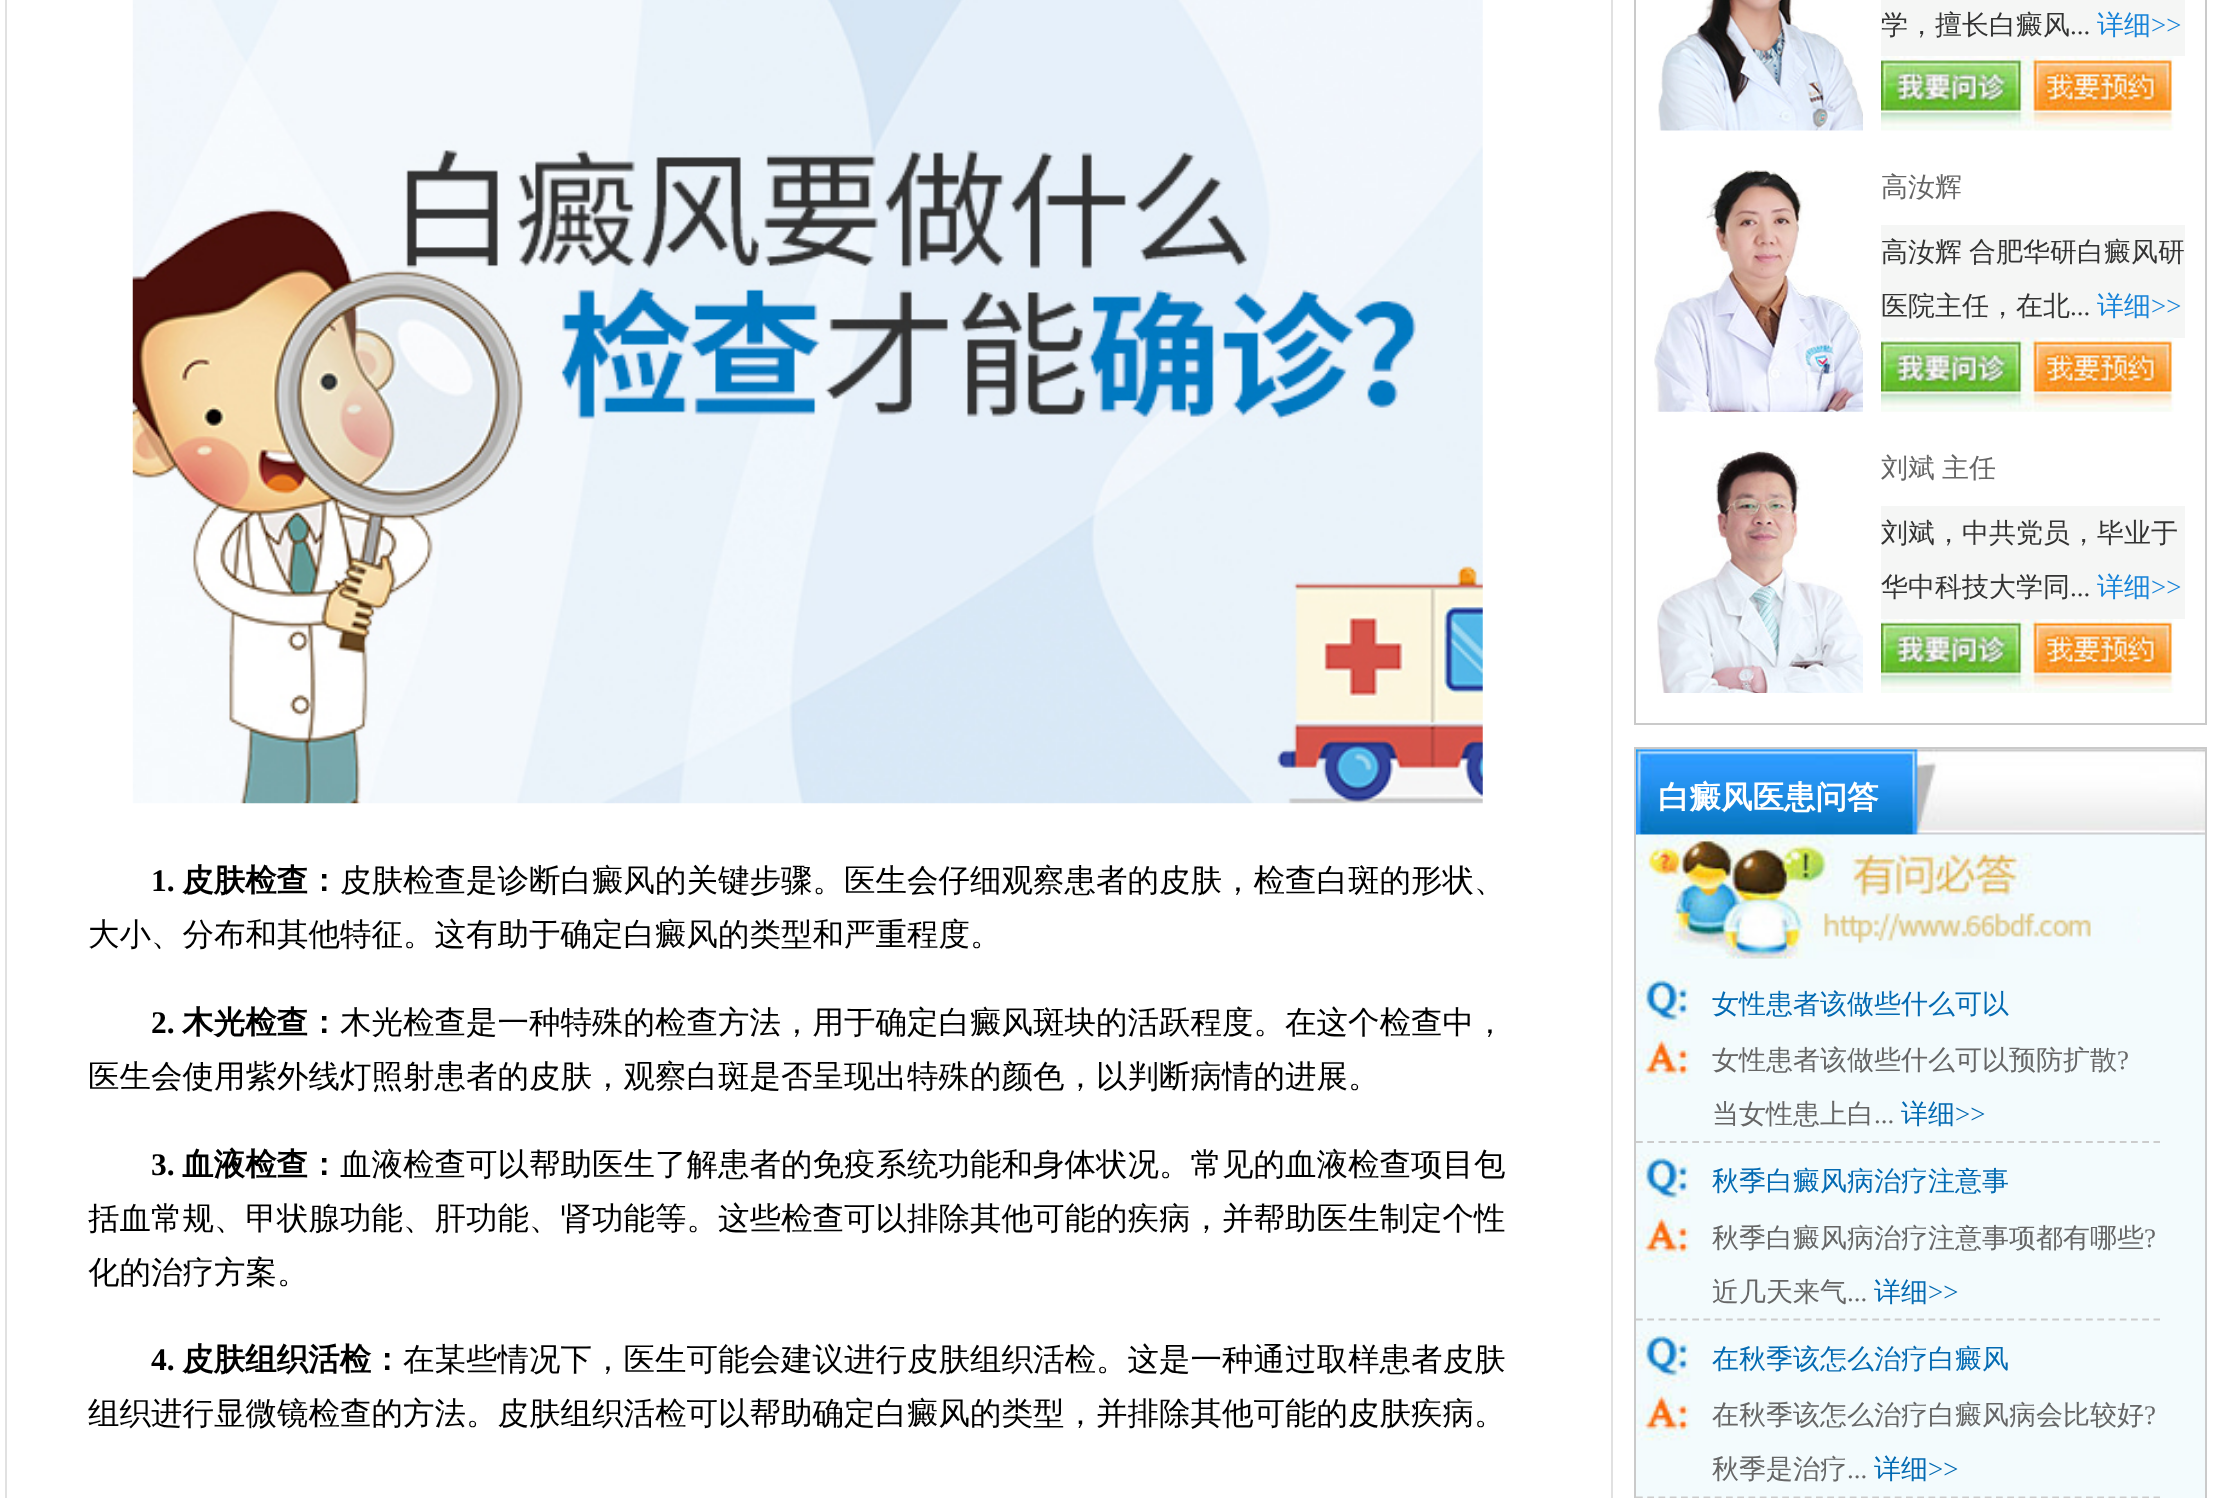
async function draw(canvas) {
	canvas.width = 2214;
	canvas.height = 1498;
	const c = canvas.getContext('2d');
	c.miterLimit = 4;
	c.fontKerning = 'normal';
	async function loadImage(src) {
		const img = new Image();
		img.src = src;
		await img.decode();
		return img;
	}

	c.fillStyle = '#fff';
	c.fillRect(0, 0, 2214, 1498);
	c.strokeStyle = '#e1e1e1';
	c.lineWidth = 2;
	c.strokeRect(6, -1, 1606, 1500);
	c.drawImage(await loadImage('img1.png'), 132, 0, 1351, 804);
	c.font = 'bold 31.5px Liberation Serif';
	c.fillStyle = '#000';
	c.fillText('1.', 151, 891);
	c.font = 'bold 31.5px WenQuanYi Zen Hei';
	c.fillText('皮肤检查：', 182, 891);
	c.font = '500 31.5px WenQuanYi Zen Hei';
	c.fillText('皮肤检查是诊断白癜风的关键步骤。医生会仔细观察患者的皮肤，检查白斑的形状、', 340, 891);
	c.fillText('大小、分布和其他特征。这有助于确定白癜风的类型和严重程度。', 88, 945);
	c.font = 'bold 31.5px Liberation Serif';
	c.fillText('2.', 151, 1033);
	c.font = 'bold 31.5px WenQuanYi Zen Hei';
	c.fillText('木光检查：', 182, 1033);
	c.font = '500 31.5px WenQuanYi Zen Hei';
	c.fillText('木光检查是一种特殊的检查方法，用于确定白癜风斑块的活跃程度。在这个检查中，', 340, 1033);
	c.fillText('医生会使用紫外线灯照射患者的皮肤，观察白斑是否呈现出特殊的颜色，以判断病情的进展。', 88, 1087);
	c.font = 'bold 31.5px Liberation Serif';
	c.fillText('3.', 151, 1175);
	c.font = 'bold 31.5px WenQuanYi Zen Hei';
	c.fillText('血液检查：', 182, 1175);
	c.font = '500 31.5px WenQuanYi Zen Hei';
	for (const [text, x, y] of [
		['血液检查可以帮助医生了解患者的免疫系统功能和身体状况。常见的血液检查项目包', 340, 1175],
		['括血常规、甲状腺功能、肝功能、肾功能等。这些检查可以排除其他可能的疾病，并帮助医生制定个性', 88, 1229],
		['化的治疗方案。', 88, 1283],
	]) {
		c.fillText(text, x, y);
	}
	c.font = 'bold 31.5px Liberation Serif';
	c.fillText('4.', 151, 1370);
	c.font = 'bold 31.5px WenQuanYi Zen Hei';
	c.fillText('皮肤组织活检：', 182, 1370);
	c.font = '500 31.5px WenQuanYi Zen Hei';
	c.fillText('在某些情况下，医生可能会建议进行皮肤组织活检。这是一种通过取样患者皮肤', 403, 1370);
	c.fillText('组织进行显微镜检查的方法。皮肤组织活检可以帮助确定白癜风的类型，并排除其他可能的皮肤疾病。', 88, 1424);
	c.strokeStyle = '#cacaca';
	c.strokeRect(1635, -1, 571, 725);
	c.drawImage(await loadImage('img2.png'), 1658, 0, 205, 131);
	c.fillStyle = '#f5f6f5';
	c.fillRect(1881, 0, 304, 56);
	c.font = '500 27px WenQuanYi Zen Hei';
	c.fillStyle = '#333';
	c.fillText('学，擅长白癜风', 1881, 34);
	c.fillStyle = '#1884d9';
	c.fillText('详细', 2097, 34);
	c.font = '27px Liberation Serif';
	c.fillText('>>', 2151, 34);
	c.fillStyle = '#333';
	c.fillText('...', 2070, 34);
	c.drawImage(await loadImage('img3.png'), 1881, 56, 293, 75);
	c.drawImage(await loadImage('img4.png'), 1654, 170, 209, 242);
	c.font = '500 27px WenQuanYi Zen Hei';
	c.fillStyle = '#666';
	c.fillText('高汝辉', 1881, 196);
	c.fillStyle = '#f5f6f5';
	c.fillRect(1881, 225, 304, 113);
	c.wordSpacing = '-1px';
	c.fillStyle = '#333';
	c.fillText('高汝辉 合肥华研白癜风研', 1881, 261);
	c.wordSpacing = '0px';
	c.fillText('医院主任，在北', 1881, 315);
	c.fillStyle = '#1884d9';
	c.fillText('详细', 2097, 315);
	c.font = '27px Liberation Serif';
	c.fillText('>>', 2151, 315);
	c.fillStyle = '#333';
	c.fillText('...', 2070, 315);
	c.drawImage(await loadImage('img5.png'), 1881, 337, 293, 75);
	c.drawImage(await loadImage('img6.png'), 1657, 450, 206, 243);
	c.wordSpacing = '-1px';
	c.font = '500 27px WenQuanYi Zen Hei';
	c.fillStyle = '#666';
	c.fillText('刘斌 主任', 1881, 477);
	c.fillStyle = '#f5f6f5';
	c.fillRect(1881, 506, 304, 113);
	c.wordSpacing = '0px';
	c.fillStyle = '#333';
	c.fillText('刘斌，中共党员，毕业于', 1881, 542);
	c.fillText('华中科技大学同', 1881, 596);
	c.fillStyle = '#1884d9';
	c.fillText('详细', 2097, 596);
	c.font = '27px Liberation Serif';
	c.fillText('>>', 2151, 596);
	c.fillStyle = '#333';
	c.fillText('...', 2070, 596);
	c.drawImage(await loadImage('img7.png'), 1881, 619, 293, 74);
	c.drawImage(await loadImage('img8.png'), 1636, 749, 569, 86);
	c.strokeRect(1635, 748, 571, 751);
	c.font = 'bold 31.5px WenQuanYi Zen Hei';
	c.fillStyle = '#fff';
	c.fillText('白癜风医患问答', 1658, 808);
	c.fillStyle = '#f3fbfd';
	c.fillRect(1636, 835, 569, 663);
	c.drawImage(await loadImage('img9.png'), 1636, 834, 524, 125);
	c.beginPath();
	c.moveTo(1636, 1142);
	c.lineTo(2160, 1142);
	c.strokeStyle = '#ccc';
	c.lineWidth = 2.2;
	c.setLineDash([6.75, 4.5]);
	c.stroke();
	c.drawImage(await loadImage('img10.png'), 1636, 976, 55, 109);
	c.font = '500 27px WenQuanYi Zen Hei';
	c.fillStyle = '#036ab2';
	c.fillText('女性患者该做些什么可以', 1712, 1013);
	c.fillStyle = '#666';
	c.fillText('女性患者该做些什么可以预防扩散', 1712, 1069);
	c.font = '27px Liberation Serif';
	c.fillText('?', 2117, 1069);
	c.font = '500 27px WenQuanYi Zen Hei';
	c.fillText('当女性患上白', 1712, 1123);
	c.fillStyle = '#036ab2';
	c.fillText('详细', 1901, 1123);
	c.font = '27px Liberation Serif';
	c.fillText('>>', 1955, 1123);
	c.fillStyle = '#666';
	c.fillText('...', 1874, 1123);
	c.beginPath();
	c.moveTo(1636, 1319.5);
	c.lineTo(2160, 1319.5);
	c.stroke();
	c.drawImage(await loadImage('img11.png'), 1636, 1154, 55, 109);
	c.font = '500 27px WenQuanYi Zen Hei';
	c.fillStyle = '#036ab2';
	c.fillText('秋季白癜风病治疗注意事', 1712, 1190);
	c.fillStyle = '#666';
	c.fillText('秋季白癜风病治疗注意事项都有哪些', 1712, 1247);
	c.font = '27px Liberation Serif';
	c.fillText('?', 2144, 1247);
	c.font = '500 27px WenQuanYi Zen Hei';
	c.fillText('近几天来气', 1712, 1301);
	c.fillStyle = '#036ab2';
	c.fillText('详细', 1874, 1301);
	c.font = '27px Liberation Serif';
	c.fillText('>>', 1928, 1301);
	c.fillStyle = '#666';
	c.fillText('...', 1847, 1301);
	c.beginPath();
	c.moveTo(1636, 1497.5);
	c.lineTo(2160, 1497.5);
	c.stroke();
	c.drawImage(await loadImage('img12.png'), 1636, 1332, 55, 109);
	c.font = '500 27px WenQuanYi Zen Hei';
	c.fillStyle = '#036ab2';
	c.fillText('在秋季该怎么治疗白癜风', 1712, 1368);
	c.fillStyle = '#666';
	c.fillText('在秋季该怎么治疗白癜风病会比较好', 1712, 1424);
	c.font = '27px Liberation Serif';
	c.fillText('?', 2144, 1424);
	c.font = '500 27px WenQuanYi Zen Hei';
	c.fillText('秋季是治疗', 1712, 1478);
	c.fillStyle = '#036ab2';
	c.fillText('详细', 1874, 1478);
	c.font = '27px Liberation Serif';
	c.fillText('>>', 1928, 1478);
	c.fillStyle = '#666';
	c.fillText('...', 1847, 1478);
}

draw(document.querySelector('canvas'));
